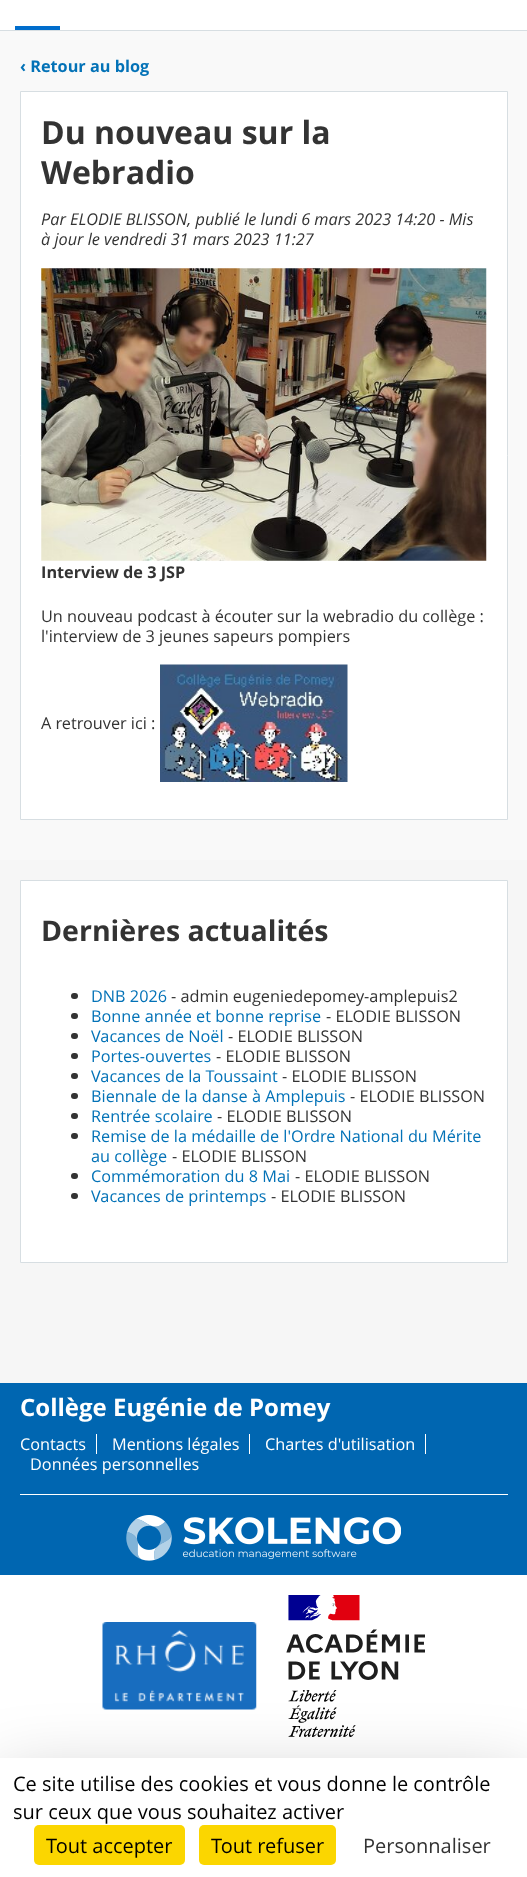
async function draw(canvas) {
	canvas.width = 527;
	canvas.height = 1877;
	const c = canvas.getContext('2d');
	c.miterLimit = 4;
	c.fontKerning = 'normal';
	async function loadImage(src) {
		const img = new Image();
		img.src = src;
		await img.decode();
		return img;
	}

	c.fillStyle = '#fff';
	c.fillRect(0, 0, 527, 1877);
	for (const [x, y, w, h, color] of [
		[0, 31, 527, 829, '#f9f9f9'],
		[0, 30, 527, 1, '#d7dee2'],
		[15, 26, 45, 4, '#006dcc'],
	]) {
		c.fillStyle = color;
		c.fillRect(x, y, w, h);
	}
	c.font = 'bold 16.25px Open Sans';
	c.fillStyle = '#0372b7';
	c.fillText('‹ Retour au blog', 20, 72);
	c.fillStyle = '#fff';
	c.beginPath();
	c.rect(20.5, 91.5, 487, 728);
	c.fill();
	c.strokeStyle = '#d7dee2';
	c.stroke();
	c.font = 'bold 32px Open Sans';
	c.fillStyle = '#333';
	c.fillText('Du nouveau sur la', 41, 144);
	c.fillText('Webradio', 41, 184);
	c.font = 'italic 16.25px Open Sans';
	c.fillText('Par ELODIE BLISSON, publié le lundi 6 mars 2023 14:20 - Mis', 41, 225);
	c.fillText('à jour le vendredi 31 mars 2023 11:27', 41, 245);
	c.drawImage(await loadImage('img1.png'), 41, 268, 446, 293);
	c.font = 'bold 16.25px Open Sans';
	c.fillText('Interview de 3 JSP', 41, 578);
	c.font = '16.25px Open Sans';
	for (const [text, x, y] of [
		['Un nouveau podcast à écouter sur la webradio du collège :', 41, 622],
		['l\'interview de 3 jeunes sapeurs pompiers', 41, 642],
		['A retrouver ici :', 41, 729],
	]) {
		c.fillText(text, x, y);
	}
	c.drawImage(await loadImage('img2.png'), 160, 664, 188, 118);
	c.fillStyle = '#f6f6f6';
	c.fillRect(0, 860, 527, 523);
	c.fillStyle = '#fff';
	c.beginPath();
	c.rect(20.5, 880.5, 487, 382);
	c.fill();
	c.stroke();
	c.font = 'bold 28.5px Open Sans';
	c.fillStyle = '#333';
	c.fillText('Dernières actualités', 41, 941);
	c.beginPath();
	c.roundRect(71, 993, 7, 6, 3);
	c.fill();
	c.font = '16.25px Open Sans';
	c.fillStyle = '#0372b7';
	c.fillText('DNB 2026', 91, 1002);
	c.fillStyle = '#333';
	c.fillText('- admin eugeniedepomey-amplepuis2', 171, 1002);
	c.beginPath();
	c.roundRect(71, 1013, 7, 6, 3);
	c.fill();
	c.fillStyle = '#0372b7';
	c.fillText('Bonne année et bonne reprise', 91, 1022);
	c.fillStyle = '#333';
	c.fillText('- ELODIE BLISSON', 326, 1022);
	c.beginPath();
	c.roundRect(71, 1033, 7, 6, 3);
	c.fill();
	c.fillStyle = '#0372b7';
	c.fillText('Vacances de Noël', 91, 1042);
	c.fillStyle = '#333';
	c.fillText('- ELODIE BLISSON', 228, 1042);
	c.beginPath();
	c.roundRect(71, 1053, 7, 6, 3);
	c.fill();
	c.fillStyle = '#0372b7';
	c.fillText('Portes-ouvertes', 91, 1062);
	c.fillStyle = '#333';
	c.fillText('- ELODIE BLISSON', 216, 1062);
	c.beginPath();
	c.roundRect(71, 1073, 7, 6, 3);
	c.fill();
	c.fillStyle = '#0372b7';
	c.fillText('Vacances de la Toussaint', 91, 1082);
	c.fillStyle = '#333';
	c.fillText('- ELODIE BLISSON', 282, 1082);
	c.beginPath();
	c.roundRect(71, 1093, 7, 6, 3);
	c.fill();
	c.fillStyle = '#0372b7';
	c.fillText('Biennale de la danse à Amplepuis', 91, 1102);
	c.fillStyle = '#333';
	c.fillText('- ELODIE BLISSON', 350, 1102);
	c.beginPath();
	c.roundRect(71, 1113, 7, 6, 3);
	c.fill();
	c.fillStyle = '#0372b7';
	c.fillText('Rentrée scolaire', 91, 1122);
	c.fillStyle = '#333';
	c.fillText('- ELODIE BLISSON', 217, 1122);
	c.beginPath();
	c.roundRect(71, 1133, 7, 6, 3);
	c.fill();
	c.fillStyle = '#0372b7';
	c.fillText('Remise de la médaille de l\'Ordre National du Mérite', 91, 1142);
	c.fillText('au collège', 91, 1162);
	c.fillStyle = '#333';
	c.fillText('- ELODIE BLISSON', 172, 1162);
	c.beginPath();
	c.roundRect(71, 1173, 7, 6, 3);
	c.fill();
	c.fillStyle = '#0372b7';
	c.fillText('Commémoration du 8 Mai', 91, 1182);
	c.fillStyle = '#333';
	c.fillText('- ELODIE BLISSON', 295, 1182);
	c.beginPath();
	c.roundRect(71, 1193, 7, 6, 3);
	c.fill();
	c.fillStyle = '#0372b7';
	c.fillText('Vacances de printemps', 91, 1202);
	c.fillStyle = '#333';
	c.fillText('- ELODIE BLISSON', 271, 1202);
	c.fillStyle = '#0066b1';
	c.fillRect(0, 1383, 527, 192);
	c.font = 'bold 24px Open Sans';
	c.fillStyle = '#fff';
	c.fillText('Collège Eugénie de Pomey', 20, 1416);
	c.fillRect(96, 1434, 1, 20);
	c.font = '16.25px Open Sans';
	c.fillText('Contacts', 20, 1450);
	c.fillRect(249, 1434, 1, 20);
	c.fillText('Mentions légales', 112, 1450);
	c.fillRect(425, 1434, 1, 20);
	c.fillText('Chartes d\'utilisation', 265, 1450);
	c.fillText('Données personnelles', 30, 1470);
	c.fillRect(20, 1494, 488, 1);
	c.drawImage(await loadImage('img3.png'), 126, 1515, 275, 46);
	c.drawImage(await loadImage('img4.png'), 102, 1622, 155, 88);
	c.drawImage(await loadImage('img5.png'), 286, 1595, 139, 142);
	c.fillStyle = '#00000040';
	c.filter = 'blur(37.5px)';
	c.beginPath();
	c.rect(0, 1783, 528, 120);
	c.fill();
	c.filter = 'none';
	c.fillStyle = '#fff';
	c.fillRect(0, 1758, 527, 119);
	c.font = '20px Open Sans';
	c.fillStyle = '#000';
	c.fillText('Ce site utilise des cookies et vous donne le contrôle', 13, 1791);
	c.fillText('sur ceux que vous souhaitez activer', 13, 1819);
	c.fillStyle = '#fbd600';
	c.beginPath();
	c.roundRect(34, 1825, 151, 40, 5);
	c.fill();
	c.fillStyle = '#000';
	c.fillText('Tout accepter', 46, 1853);
	c.fillStyle = '#fbd600';
	c.beginPath();
	c.roundRect(199, 1825, 137, 40, 5);
	c.fill();
	c.fillStyle = '#000';
	c.fillText('Tout refuser', 211, 1853);
	c.fillStyle = '#333';
	c.fillText('Personnaliser', 363, 1853);
}

draw(document.querySelector('canvas'));
